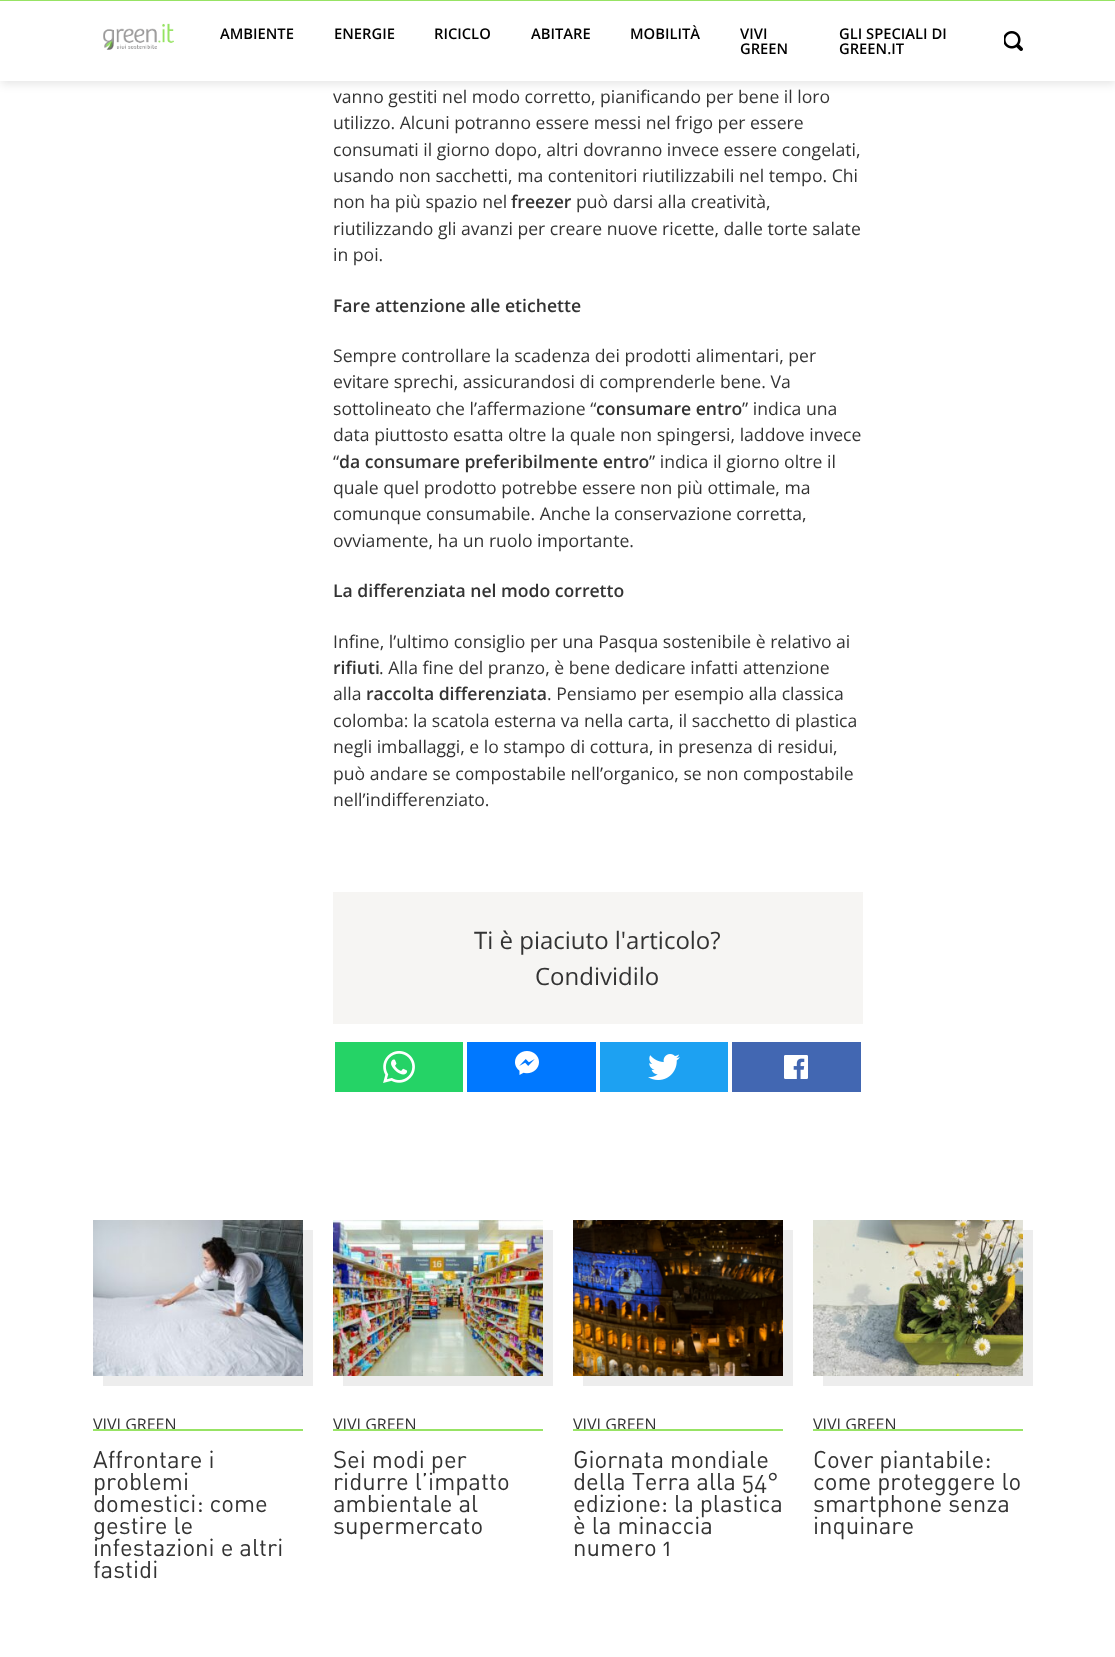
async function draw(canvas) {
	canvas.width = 1115;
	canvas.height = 1657;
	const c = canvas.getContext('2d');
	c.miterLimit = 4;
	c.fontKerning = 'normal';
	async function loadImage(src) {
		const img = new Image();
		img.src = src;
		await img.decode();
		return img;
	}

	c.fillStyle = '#fff';
	c.fillRect(0, 0, 1115, 1657);
	c.fillStyle = '#0000001a';
	c.filter = 'blur(5px)';
	c.beginPath();
	c.rect(1, 3, 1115, 81);
	c.fill();
	c.filter = 'none';
	c.fillStyle = '#fff';
	c.fillRect(0, 1, 1115, 80);
	c.fillStyle = '#97e364';
	c.fillRect(0, 0, 1115, 1);
	c.drawImage(await loadImage('img1.png'), 103, 23, 71, 27);
	c.font = '600 14.75px Open Sans';
	c.fillStyle = '#000';
	for (const [text, x, y] of [
		['AMBIENTE', 220, 39],
		['ENERGIE', 334, 39],
		['RICICLO', 434, 39],
		['ABITARE', 531, 39],
		['MOBILITÀ', 630, 39],
		['VIVI', 740, 39],
		['GREEN', 740, 54],
		['GLI SPECIALI DI', 839, 39],
		['GREEN.IT', 839, 54],
	]) {
		c.fillText(text, x, y);
	}
	c.drawImage(await loadImage('img2.png'), 1004, 31, 19, 20);
	c.font = '17.6px Open Sans';
	c.fillStyle = '#333';
	for (const [text, x, y] of [
		['vanno gestiti nel modo corretto, pianificando per bene il loro', 333, 103],
		['utilizzo. Alcuni potranno essere messi nel frigo per essere', 333, 129],
		['consumati il giorno dopo, altri dovranno invece essere congelati,', 333, 156],
		['usando non sacchetti, ma contenitori riutilizzabili nel tempo. Chi', 333, 182],
		['non ha più spazio nel', 333, 208],
	]) {
		c.fillText(text, x, y);
	}
	c.font = '600 17.6px Open Sans';
	c.fillText('freezer', 511, 208);
	c.font = '17.6px Open Sans';
	for (const [text, x, y] of [
		['può darsi alla creatività,', 576, 208],
		['riutilizzando gli avanzi per creare nuove ricette, dalle torte salate', 333, 235],
		['in poi.', 333, 261],
	]) {
		c.fillText(text, x, y);
	}
	c.font = '600 17.6px Open Sans';
	c.fillText('Fare attenzione alle etichette', 333, 312);
	c.font = '17.6px Open Sans';
	for (const [text, x, y] of [
		['Sempre controllare la scadenza dei prodotti alimentari, per', 333, 362],
		['evitare sprechi, assicurandosi di comprenderle bene. Va', 333, 388],
		['sottolineato che l’affermazione “', 333, 415],
	]) {
		c.fillText(text, x, y);
	}
	c.font = '600 17.6px Open Sans';
	c.fillText('consumare entro', 596, 415);
	c.font = '17.6px Open Sans';
	for (const [text, x, y] of [
		['” indica una', 742, 415],
		['data piuttosto esatta oltre la quale non spingersi, laddove invece', 333, 441],
		['“', 333, 468],
	]) {
		c.fillText(text, x, y);
	}
	c.font = '600 17.6px Open Sans';
	c.fillText('da consumare preferibilmente entro', 339, 468);
	c.font = '17.6px Open Sans';
	for (const [text, x, y] of [
		['” indica il giorno oltre il', 649, 468],
		['quale quel prodotto potrebbe essere non più ottimale, ma', 333, 494],
		['comunque consumabile. Anche la conservazione corretta,', 333, 520],
		['ovviamente, ha un ruolo importante.', 333, 547],
	]) {
		c.fillText(text, x, y);
	}
	c.font = '600 17.6px Open Sans';
	c.fillText('La differenziata nel modo corretto', 333, 597);
	c.font = '17.6px Open Sans';
	c.fillText('Infine, l’ultimo consiglio per una Pasqua sostenibile è relativo ai', 333, 648);
	c.font = '600 17.6px Open Sans';
	c.fillText('rifiuti', 333, 674);
	c.font = '17.6px Open Sans';
	c.fillText('. Alla fine del pranzo, è bene dedicare infatti attenzione', 379, 674);
	c.fillText('alla', 333, 700);
	c.font = '600 17.6px Open Sans';
	c.fillText('raccolta differenziata', 366, 700);
	c.font = '17.6px Open Sans';
	for (const [text, x, y] of [
		['. Pensiamo per esempio alla classica', 547, 700],
		['colomba: la scatola esterna va nella carta, il sacchetto di plastica', 333, 727],
		['negli imballaggi, e lo stampo di cottura, in presenza di residui,', 333, 753],
		['può andare se compostabile nell’organico, se non compostabile', 333, 780],
		['nell’indifferenziato.', 333, 806],
	]) {
		c.fillText(text, x, y);
	}
	c.fillStyle = '#f6f5f3';
	c.fillRect(333, 892, 530, 132);
	c.font = '24px Open Sans';
	c.fillStyle = '#333';
	c.fillText('Ti è piaciuto l\'articolo?', 474, 949);
	c.fillText('Condividilo', 535, 985);
	c.fillStyle = '#25d366';
	c.fillRect(335, 1042, 128, 50);
	c.drawImage(await loadImage('img3.png'), 383, 1051, 32, 32);
	c.fillStyle = '#0078ff';
	c.fillRect(467, 1042, 129, 50);
	c.drawImage(await loadImage('img4.png'), 515, 1051, 24, 24);
	c.fillStyle = '#1da1f2';
	c.fillRect(600, 1042, 128, 50);
	c.drawImage(await loadImage('img5.png'), 648, 1054, 32, 26);
	c.fillStyle = '#4267b2';
	c.fillRect(732, 1042, 129, 50);
	c.drawImage(await loadImage('img6.png'), 784, 1055, 24, 24);
	c.fillStyle = '#ededed';
	c.beginPath();
	c.moveTo(103, 1376);
	c.lineTo(103, 1386);
	c.lineTo(313, 1386);
	c.lineTo(313, 1230);
	c.lineTo(303, 1230);
	c.lineTo(303, 1376);
	c.closePath();
	c.fill();
	c.drawImage(await loadImage('img7.png'), 93, 1220, 210, 156);
	c.font = '16px Open Sans';
	c.fillStyle = '#333';
	c.fillText('VIVI GREEN', 93, 1430);
	c.fillStyle = '#97e364';
	c.fillRect(93, 1429, 210, 2);
	c.font = '24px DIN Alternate';
	c.fillStyle = '#333';
	for (const [text, x, y] of [
		['Affrontare i', 93, 1468],
		['problemi', 93, 1490],
		['domestici: come', 93, 1512],
		['gestire le', 93, 1534],
		['infestazioni e altri', 93, 1556],
		['fastidi', 93, 1578],
	]) {
		c.fillText(text, x, y);
	}
	c.fillStyle = '#ededed';
	c.beginPath();
	c.moveTo(343, 1376);
	c.lineTo(343, 1386);
	c.lineTo(553, 1386);
	c.lineTo(553, 1230);
	c.lineTo(543, 1230);
	c.lineTo(543, 1376);
	c.closePath();
	c.fill();
	c.drawImage(await loadImage('img8.png'), 333, 1220, 210, 156);
	c.font = '16px Open Sans';
	c.fillStyle = '#333';
	c.fillText('VIVI GREEN', 333, 1430);
	c.fillStyle = '#97e364';
	c.fillRect(333, 1429, 210, 2);
	c.font = '24px DIN Alternate';
	c.fillStyle = '#333';
	for (const [text, x, y] of [
		['Sei modi per', 333, 1468],
		['ridurre l’impatto', 333, 1490],
		['ambientale al', 333, 1512],
		['supermercato', 333, 1534],
	]) {
		c.fillText(text, x, y);
	}
	c.fillStyle = '#ededed';
	c.beginPath();
	c.moveTo(583, 1376);
	c.lineTo(583, 1386);
	c.lineTo(793, 1386);
	c.lineTo(793, 1230);
	c.lineTo(783, 1230);
	c.lineTo(783, 1376);
	c.closePath();
	c.fill();
	c.drawImage(await loadImage('img9.png'), 573, 1220, 210, 156);
	c.font = '16px Open Sans';
	c.fillStyle = '#333';
	c.fillText('VIVI GREEN', 573, 1430);
	c.fillStyle = '#97e364';
	c.fillRect(573, 1429, 210, 2);
	c.font = '24px DIN Alternate';
	c.fillStyle = '#333';
	for (const [text, x, y] of [
		['Giornata mondiale', 573, 1468],
		['della Terra alla 54°', 573, 1490],
		['edizione: la plastica', 573, 1512],
		['è la minaccia', 573, 1534],
		['numero 1', 573, 1556],
	]) {
		c.fillText(text, x, y);
	}
	c.fillStyle = '#ededed';
	c.beginPath();
	c.moveTo(823, 1376);
	c.lineTo(823, 1386);
	c.lineTo(1033, 1386);
	c.lineTo(1033, 1230);
	c.lineTo(1023, 1230);
	c.lineTo(1023, 1376);
	c.closePath();
	c.fill();
	c.drawImage(await loadImage('img10.png'), 813, 1220, 210, 156);
	c.font = '16px Open Sans';
	c.fillStyle = '#333';
	c.fillText('VIVI GREEN', 813, 1430);
	c.fillStyle = '#97e364';
	c.fillRect(813, 1429, 210, 2);
	c.font = '24px DIN Alternate';
	c.fillStyle = '#333';
	for (const [text, x, y] of [
		['Cover piantabile:', 813, 1468],
		['come proteggere lo', 813, 1490],
		['smartphone senza', 813, 1512],
		['inquinare', 813, 1534],
	]) {
		c.fillText(text, x, y);
	}
}

draw(document.querySelector('canvas'));
